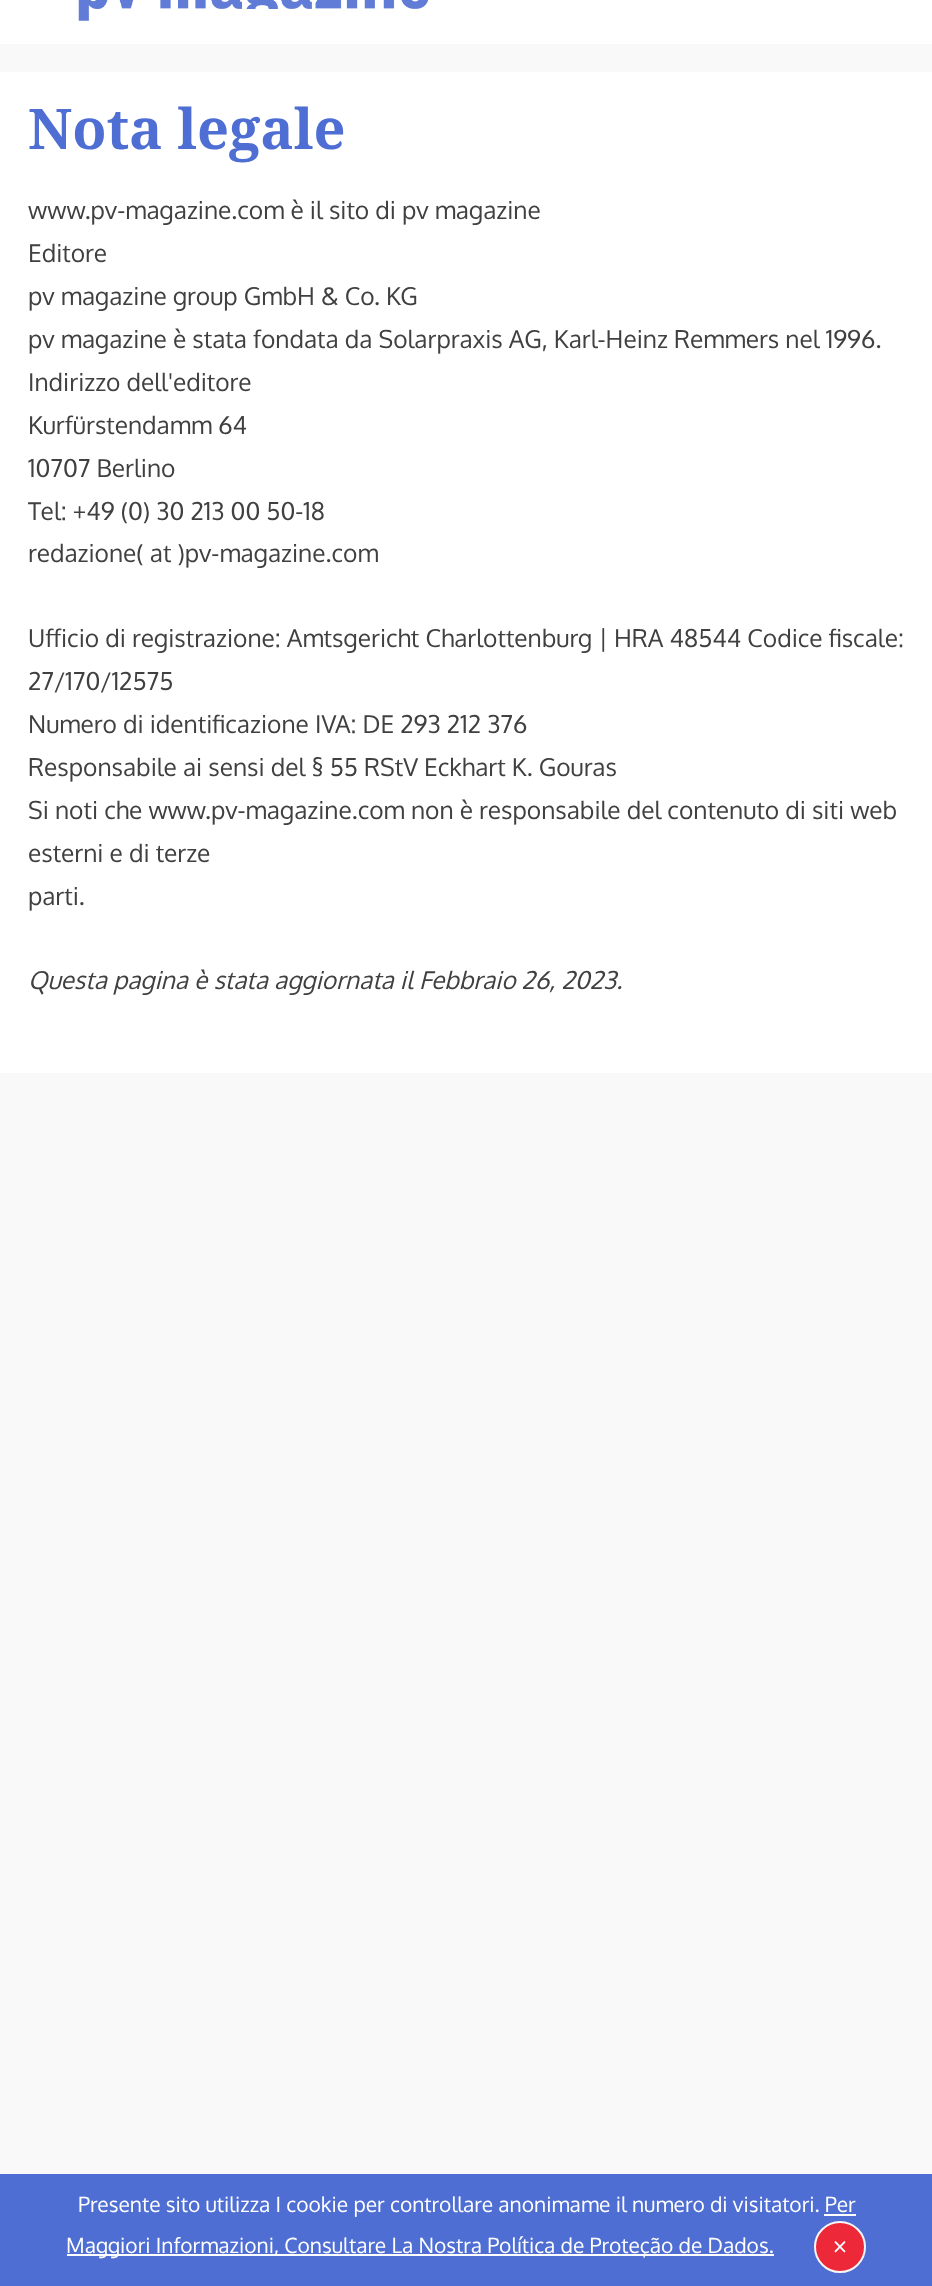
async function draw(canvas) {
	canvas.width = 932;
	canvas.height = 2286;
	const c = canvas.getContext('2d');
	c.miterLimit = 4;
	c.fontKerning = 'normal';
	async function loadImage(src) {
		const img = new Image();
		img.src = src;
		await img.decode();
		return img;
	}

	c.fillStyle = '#f9f9f9';
	c.fillRect(0, 0, 932, 2286);
	c.fillStyle = '#fff';
	c.fillRect(0, 0, 932, 44);
	c.drawImage(await loadImage('img1.png'), 78, 0, 350, 21);
	c.fillRect(0, 72, 932, 1001);
	c.font = 'bold 56px Droid Serif';
	c.fillStyle = '#4f6ed3';
	c.fillText('Nota legale', 28, 149);
	c.font = '24.5px Oxygen';
	c.fillStyle = '#404040';
	for (const [text, x, y] of [
		['www.pv-magazine.com è il sito di pv magazine', 28, 219],
		['Editore', 28, 262],
		['pv magazine group GmbH & Co. KG', 28, 305],
		['pv magazine è stata fondata da Solarpraxis AG, Karl-Heinz Remmers nel 1996.', 28, 348],
		['Indirizzo dell\'editore', 28, 391],
		['Kurfürstendamm 64', 28, 434],
		['10707 Berlino', 28, 477],
		['Tel: +49 (0) 30 213 00 50-18', 28, 520],
		['redazione( at )pv-magazine.com', 28, 562],
		['Ufficio di registrazione: Amtsgericht Charlottenburg | HRA 48544 Codice fiscale:', 28, 647],
		['27/170/12575', 28, 690],
		['Numero di identificazione IVA: DE 293 212 376', 28, 733],
		['Responsabile ai sensi del § 55 RStV Eckhart K. Gouras', 28, 776],
		['Si noti che www.pv-magazine.com non è responsabile del contenuto di siti web', 28, 819],
		['esterni e di terze', 28, 862],
		['parti.', 28, 905],
	]) {
		c.fillText(text, x, y);
	}
	c.font = 'italic 24.5px Oxygen';
	c.fillText('Questa pagina è stata aggiornata il Febbraio 26, 2023.', 28, 989);
	c.fillStyle = '#4f6ed3';
	c.fillRect(0, 2174, 932, 112);
	c.font = '21px Oxygen';
	c.fillStyle = '#fff';
	c.fillText('Presente sito utilizza I cookie per controllare anonimame il numero di visitatori. Per', 78, 2212);
	c.fillRect(67, 2254, 707, 2);
	c.fillText('Maggiori Informazioni, Consultare La Nostra Política de Proteção de Dados.', 66, 2253);
	c.fillRect(824, 2214, 32, 2);
	c.fillStyle = '#ed2939';
	c.beginPath();
	c.arc(840, 2247, 25, 0, 2 * Math.PI);
	c.fill();
	c.strokeStyle = '#f6f6f6';
	c.lineWidth = 2;
	c.stroke();
	c.font = '28px Source Sans Pro';
	c.fillStyle = '#fff';
	c.fillText('×', 833, 2256);
}

draw(document.querySelector('canvas'));
